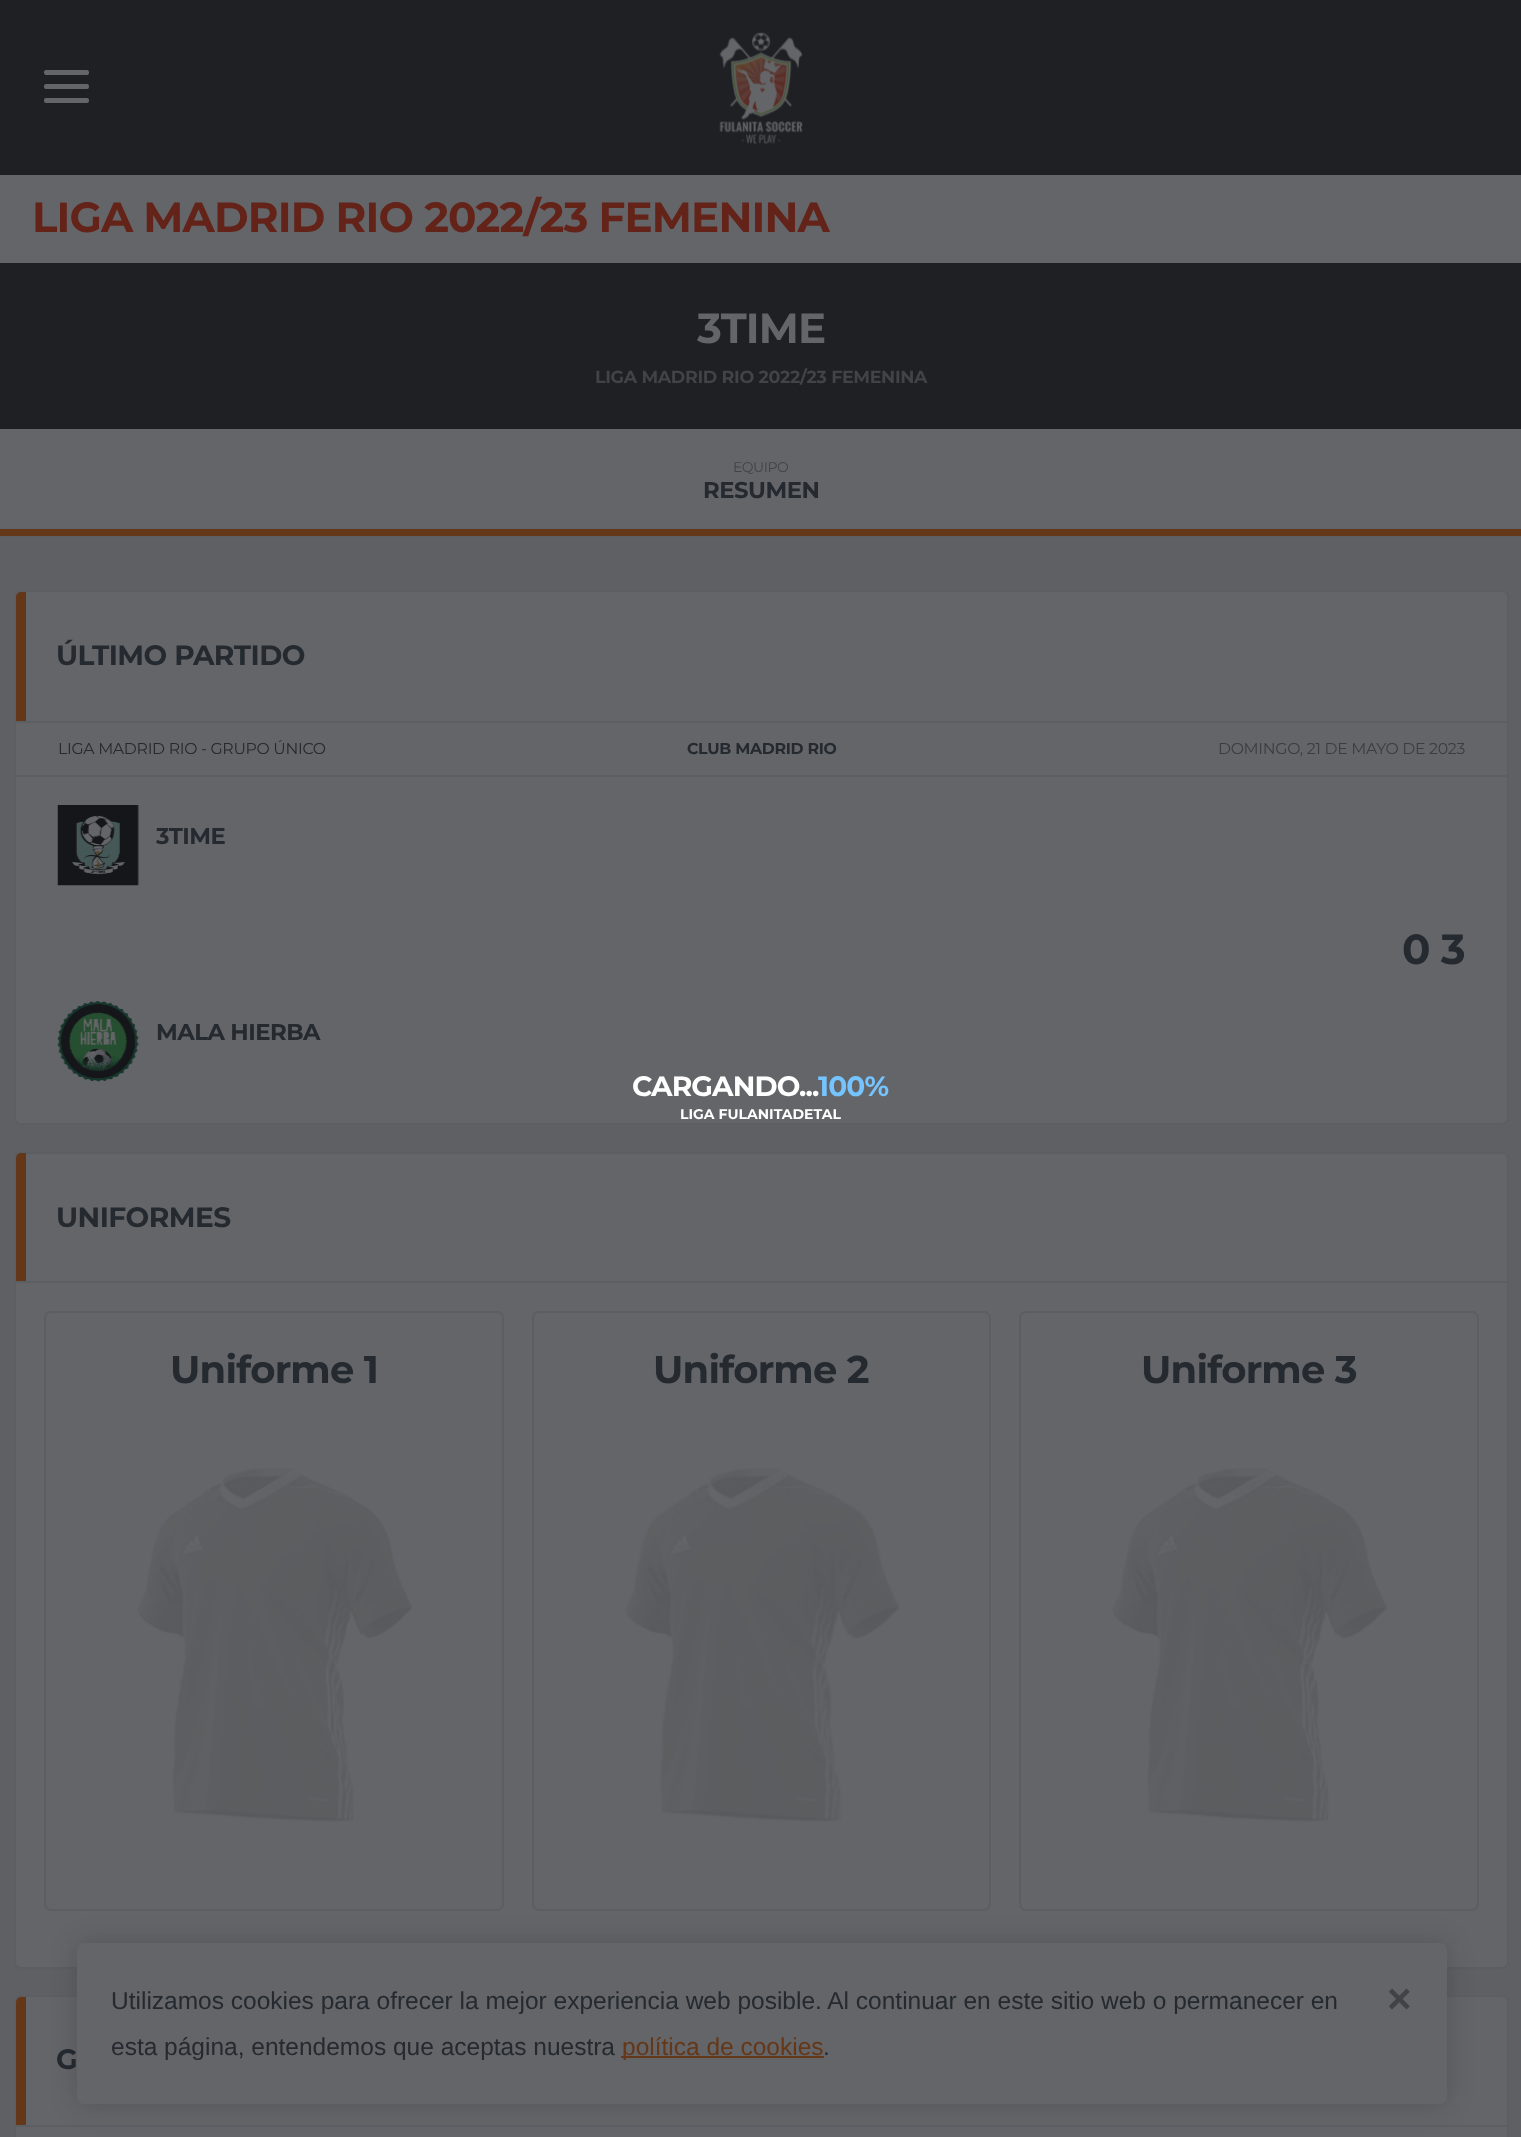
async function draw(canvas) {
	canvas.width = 1521;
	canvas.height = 2137;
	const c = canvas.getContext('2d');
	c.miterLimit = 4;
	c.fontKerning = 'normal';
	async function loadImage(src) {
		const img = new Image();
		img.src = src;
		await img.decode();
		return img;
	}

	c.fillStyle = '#5e6064';
	c.fillRect(0, 0, 1521, 2137);
	c.fillStyle = '#1e2024';
	c.fillRect(0, 0, 1521, 175);
	c.fillStyle = '#646568';
	c.beginPath();
	c.roundRect(44, 70, 45, 5, 2);
	c.fill();
	c.beginPath();
	c.roundRect(44, 84, 45, 5, 2);
	c.fill();
	c.beginPath();
	c.roundRect(44, 98, 45, 5, 2);
	c.fill();
	c.drawImage(await loadImage('img1.png'), 719, 32, 84, 113);
	c.fillRect(0, 175, 1521, 88);
	c.letterSpacing = '-0.85px';
	c.font = 'bold 42px Montserrat';
	c.fillStyle = '#642319';
	c.fillText('LIGA MADRID RIO 2022/23 FEMENINA', 32, 232);
	c.fillStyle = '#1e2024';
	c.fillRect(0, 263, 1521, 166);
	c.fillStyle = '#646568';
	c.fillText('3TIME', 697, 343);
	c.letterSpacing = '-0.35px';
	c.font = 'bold 17.5px Montserrat';
	c.fillStyle = '#414346';
	c.fillText('LIGA MADRID RIO 2022/23 FEMENINA', 595, 383);
	c.fillStyle = '#646568';
	c.fillRect(0, 429, 1521, 100);
	c.fillStyle = '#5b5e62';
	c.fillRect(0, 536, 1521, 2);
	c.letterSpacing = '-0.5px';
	c.font = '14px Montserrat';
	c.fillStyle = '#414346';
	c.fillText('EQUIPO', 733, 472);
	c.font = 'bold 22.75px Montserrat';
	c.fillStyle = '#242a30';
	c.fillText('RESUMEN', 703, 498);
	c.fillStyle = '#643719';
	c.fillRect(0, 529, 1521, 7);
	c.fillStyle = '#646568';
	c.beginPath();
	c.roundRect(15, 591, 1493, 533, 6);
	c.fill();
	c.strokeStyle = '#5b5e62';
	c.lineWidth = 2;
	c.stroke();
	c.fillStyle = '#643719';
	c.beginPath();
	c.roundRect(16, 592, 10, 129, [5, 0, 0, 0]);
	c.fill();
	c.font = 'bold 28px Montserrat';
	c.fillStyle = '#242a30';
	c.fillText('ÚLTIMO PARTIDO', 56, 665);
	c.fillStyle = '#5b5e62';
	c.fillRect(16, 721, 1491, 2);
	c.fillRect(16, 775, 1491, 2);
	c.letterSpacing = '-0.3px';
	c.font = '15.75px Montserrat';
	c.fillStyle = '#242a30';
	c.fillText('LIGA MADRID RIO - GRUPO ÚNICO', 58, 754);
	c.font = 'bold 15.75px Montserrat';
	c.fillText('CLUB MADRID RIO', 687, 754);
	c.font = '15.75px Montserrat';
	c.fillStyle = '#3b3d41';
	c.fillText('DOMINGO, 21 DE MAYO DE 2023', 1218, 754);
	c.drawImage(await loadImage('img2.png'), 57, 805, 82, 81);
	c.letterSpacing = '-0.5px';
	c.font = 'bold 22.75px Montserrat';
	c.fillStyle = '#242a30';
	c.fillText('3TIME', 156, 844);
	c.letterSpacing = '-0.85px';
	c.font = 'bold 42px Montserrat';
	c.fillText('0 3', 1402, 964);
	c.drawImage(await loadImage('img3.png'), 57, 1001, 82, 81);
	c.letterSpacing = '-0.5px';
	c.font = 'bold 22.75px Montserrat';
	c.fillText('MALA HIERBA', 156, 1040);
	c.fillStyle = '#646568';
	c.beginPath();
	c.roundRect(15, 1153, 1493, 815, 6);
	c.fill();
	c.stroke();
	c.fillStyle = '#5b5e62';
	c.fillRect(16, 1281, 1491, 2);
	c.fillStyle = '#643719';
	c.beginPath();
	c.roundRect(16, 1153, 10, 128, [5, 0, 0, 0]);
	c.fill();
	c.font = 'bold 28px Montserrat';
	c.fillStyle = '#242a30';
	c.fillText('UNIFORMES', 56, 1227);
	c.beginPath();
	c.roundRect(45, 1312, 458, 598, 6);
	c.stroke();
	c.letterSpacing = '-0.75px';
	c.font = 'bold 38.5px Montserrat';
	c.fillText('Uniforme 1', 170, 1383);
	c.drawImage(await loadImage('img4.png'), 138, 1468, 274, 354);
	c.beginPath();
	c.roundRect(533, 1312, 457, 598, 6);
	c.stroke();
	c.fillText('Uniforme 2', 653, 1383);
	c.drawImage(await loadImage('img5.png'), 625, 1467, 275, 355);
	c.beginPath();
	c.roundRect(1020, 1312, 458, 598, 6);
	c.stroke();
	c.fillText('Uniforme 3', 1141, 1383);
	c.drawImage(await loadImage('img6.png'), 1112, 1468, 275, 354);
	c.fillStyle = '#646568';
	c.beginPath();
	c.moveTo(21, 1995);
	c.lineTo(1502, 1995);
	c.bezierCurveTo(1506, 1995, 1509, 1998, 1509, 2002);
	c.lineTo(1509, 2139);
	c.lineTo(14, 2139);
	c.lineTo(14, 2002);
	c.bezierCurveTo(14, 1998, 17, 1995, 21, 1995);
	c.closePath();
	c.fill();
	c.beginPath();
	c.roundRect(15, 1996, 1493, 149, 6);
	c.stroke();
	c.fillStyle = '#5b5e62';
	c.fillRect(16, 2125, 1491, 2);
	c.fillStyle = '#643719';
	c.beginPath();
	c.roundRect(16, 1997, 10, 128, [5, 0, 0, 0]);
	c.fill();
	c.letterSpacing = '-0.5px';
	c.font = 'bold 28px Montserrat';
	c.fillStyle = '#242a30';
	c.fillText('G', 56, 2069);
	c.letterSpacing = '-0.85px';
	c.fillStyle = '#fff';
	c.fillText('CARGANDO...', 632, 1096);
	c.fillStyle = '#75c4ff';
	c.fillText('100%', 818, 1096);
	c.letterSpacing = '0px';
	c.font = 'bold 14px Montserrat';
	c.fillStyle = '#fff';
	c.fillText('LIGA FULANITADETAL', 680, 1119);
	c.fillStyle = '#15161933';
	c.filter = 'blur(13px)';
	c.beginPath();
	c.roundRect(77, 1943, 1370, 161, 7);
	c.fill();
	c.filter = 'none';
	c.fillStyle = '#646568';
	c.beginPath();
	c.roundRect(77, 1943, 1370, 161, 7);
	c.fill();
	c.font = '24.5px Liberation Sans';
	c.fillStyle = '#242a30';
	c.fillText('Utilizamos cookies para ofrecer la mejor experiencia web posible. Al continuar en este sitio web o permanecer en', 111, 2009);
	c.fillText('esta página, entendemos que aceptas nuestra', 111, 2055);
	c.fillStyle = '#643719';
	c.fillRect(621, 2056, 203, 2);
	c.fillText('política de cookies', 622, 2055);
	c.fillStyle = '#242a30';
	c.fillText('.', 823, 2055);
	c.font = 'bold 42px Liberation Sans';
	c.fillStyle = '#414346';
	c.fillText('×', 1387, 2013);
}

draw(document.querySelector('canvas'));
